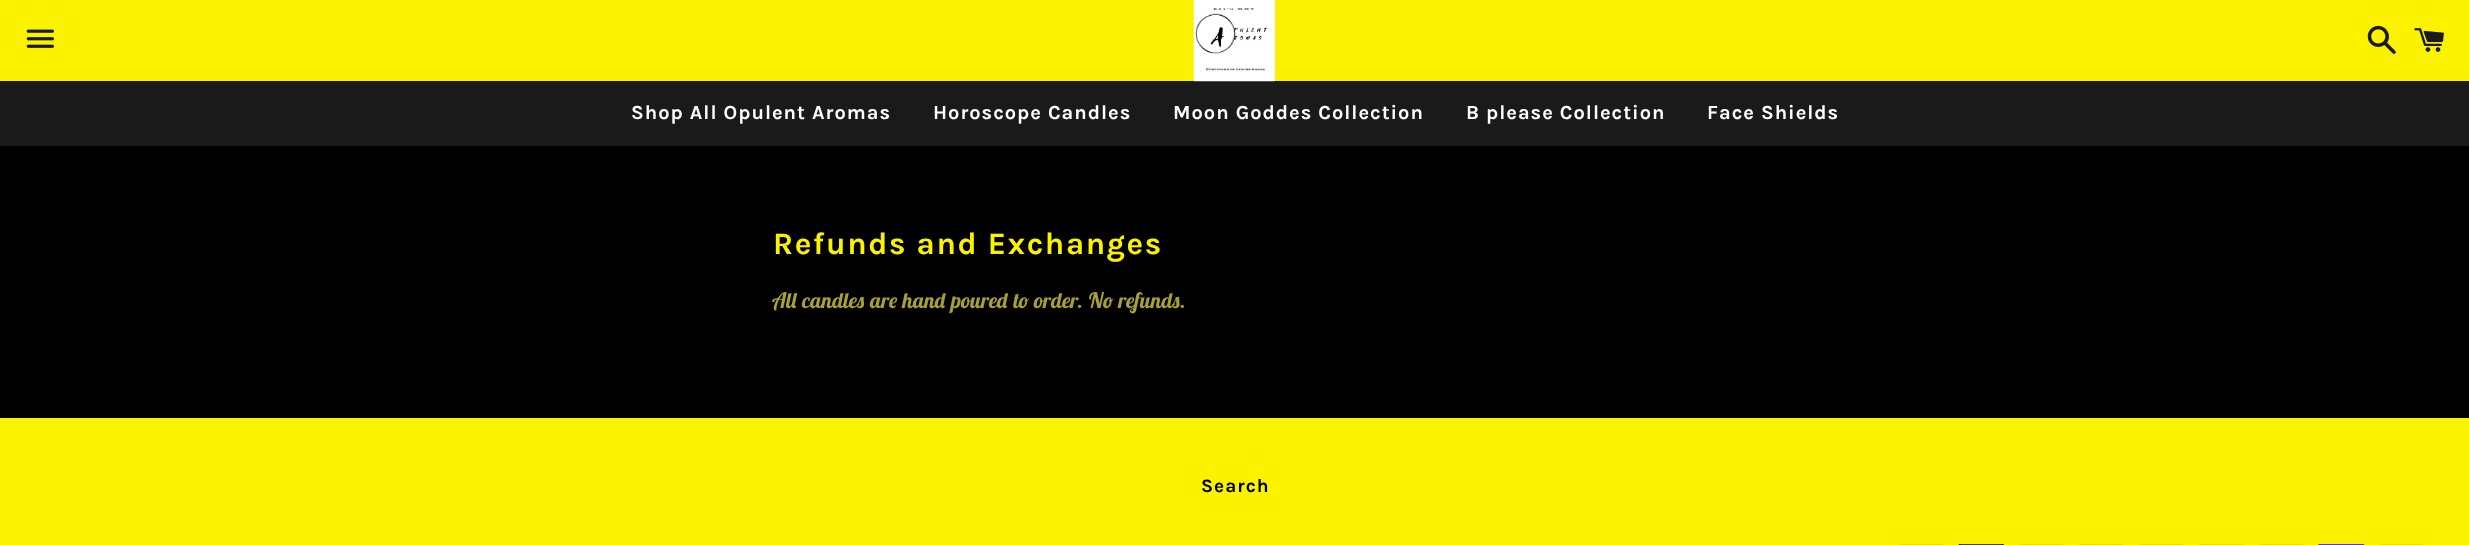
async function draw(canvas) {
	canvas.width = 2469;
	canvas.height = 545;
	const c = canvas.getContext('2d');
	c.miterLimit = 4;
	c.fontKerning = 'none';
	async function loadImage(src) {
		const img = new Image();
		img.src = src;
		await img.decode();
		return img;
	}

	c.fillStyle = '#000';
	c.fillRect(0, 0, 2469, 545);
	c.fillStyle = '#fbf200';
	c.fillRect(0, 0, 2469, 81);
	c.drawImage(await loadImage('img1.png'), 26, 29, 28, 19);
	c.fillStyle = '#1a1a1a';
	c.fillRect(0, 81, 2469, 65);
	c.drawImage(await loadImage('img2.png'), 1193, 0, 82, 82);
	c.drawImage(await loadImage('img3.png'), 2367, 25, 29, 29);
	c.drawImage(await loadImage('img4.png'), 2414, 28, 30, 24);
	c.letterSpacing = '1px';
	c.font = 'bold 20px Karla';
	c.fillStyle = '#fff';
	for (const [text, x, y] of [
		['Shop All Opulent Aromas', 631, 119],
		['Horoscope Candles', 933, 119],
		['Moon Goddes Collection', 1173, 119],
		['B please Collection', 1466, 119],
		['Face Shields', 1707, 119],
	]) {
		c.fillText(text, x, y);
	}
	c.letterSpacing = '1.6px';
	c.font = 'bold 31.25px Karla';
	c.fillStyle = '#fbf200';
	c.fillText('Refunds and Exchanges', 773, 254);
	c.letterSpacing = '0px';
	c.font = 'italic bold 21.25px Lobster Two';
	c.fillStyle = '#a8a033';
	c.fillText('All candles are hand poured to order. No refunds.', 773, 308);
	c.fillStyle = '#fbf200';
	c.fillRect(0, 418, 2469, 127);
	c.letterSpacing = '1px';
	c.font = 'bold 19px Karla';
	c.fillStyle = '#000';
	c.fillText('Search', 1201, 492);
	c.drawImage(await loadImage('img5.png'), 1899, 544, 45, 1);
	c.drawImage(await loadImage('img6.png'), 1958, 544, 46, 1);
	c.drawImage(await loadImage('img5.png'), 2019, 544, 45, 1);
	c.drawImage(await loadImage('img5.png'), 2079, 544, 45, 1);
	c.drawImage(await loadImage('img5.png'), 2139, 544, 45, 1);
	c.drawImage(await loadImage('img5.png'), 2199, 544, 45, 1);
	c.drawImage(await loadImage('img5.png'), 2259, 544, 45, 1);
	c.drawImage(await loadImage('img7.png'), 2318, 544, 47, 1);
	c.drawImage(await loadImage('img8.png'), 2380, 544, 43, 1);
}

draw(document.querySelector('canvas'));
